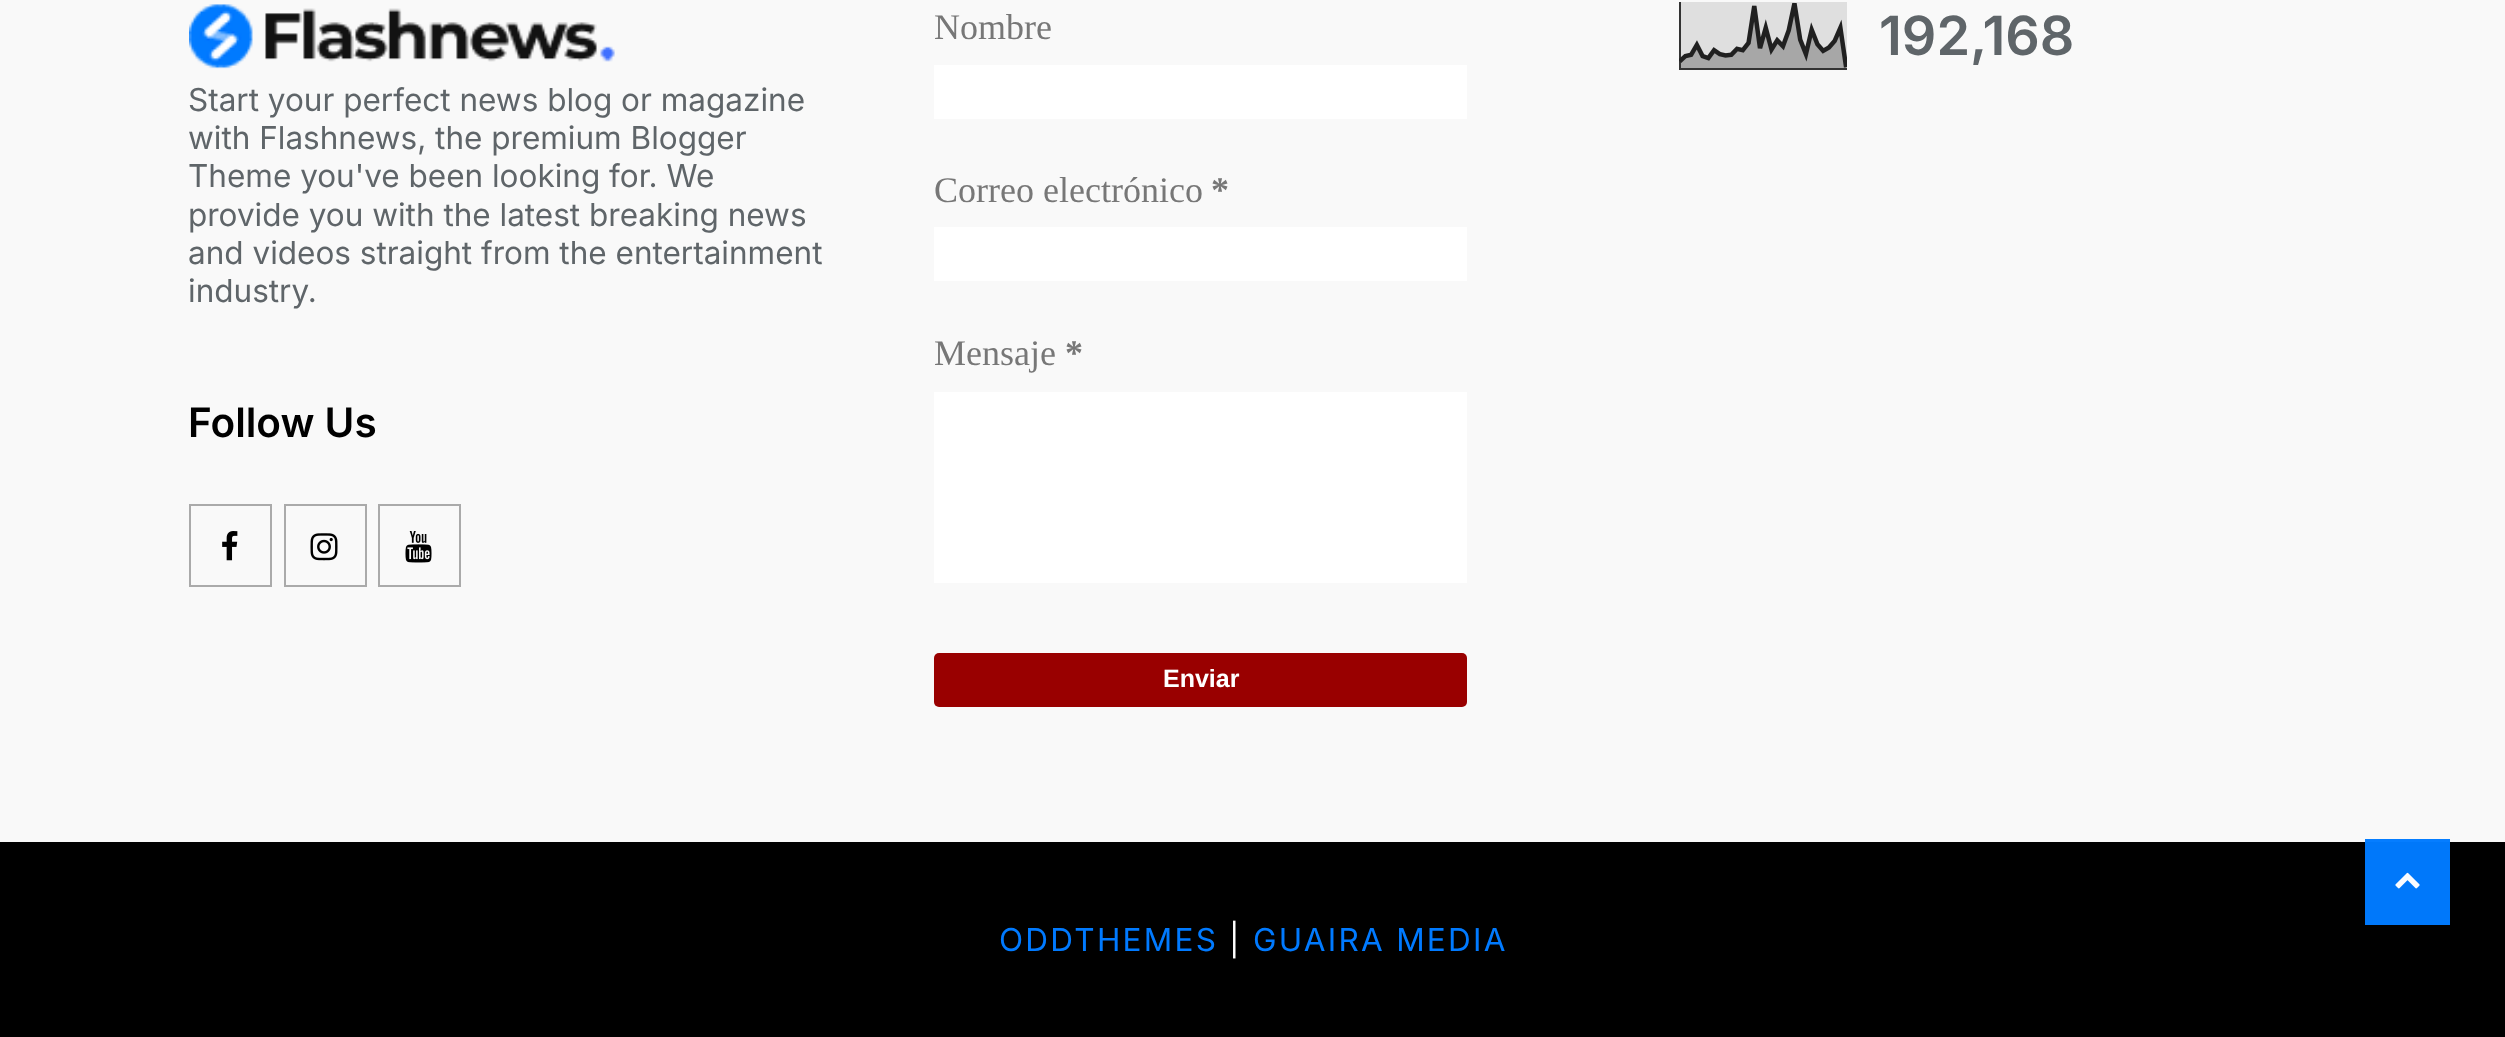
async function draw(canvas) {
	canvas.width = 2505;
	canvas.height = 1037;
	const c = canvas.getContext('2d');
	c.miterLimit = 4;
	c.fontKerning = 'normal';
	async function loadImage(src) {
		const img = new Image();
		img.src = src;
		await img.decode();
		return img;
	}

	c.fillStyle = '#f9f9f9';
	c.fillRect(0, 0, 2505, 1037);
	c.fillStyle = '#057dff';
	c.fillRect(2365, 839, 85, 3);
	c.font = '36px Liberation Serif';
	c.fillStyle = '#777';
	c.fillText('Nombre', 934, 39);
	c.fillStyle = '#fff';
	c.fillRect(934, 65, 533, 54);
	c.fillStyle = '#777';
	c.fillText('Correo electrónico', 934, 202);
	c.font = 'bold 36px Liberation Serif';
	c.fillText('*', 1211, 202);
	c.fillStyle = '#fff';
	c.fillRect(934, 227, 533, 54);
	c.font = '36px Liberation Serif';
	c.fillStyle = '#777';
	c.fillText('Mensaje', 934, 365);
	c.font = 'bold 36px Liberation Serif';
	c.fillText('*', 1065, 365);
	c.fillStyle = '#fff';
	c.fillRect(934, 392, 533, 191);
	c.fillStyle = '#900';
	c.beginPath();
	c.roundRect(934, 653, 533, 54, 5);
	c.fill();
	c.font = 'bold 25px Liberation Sans';
	c.fillStyle = '#fff';
	c.fillText('Enviar', 1163, 687);
	c.drawImage(await loadImage('img1.png'), 1679, 2, 168, 68);
	c.font = '600 54px Inter';
	c.fillStyle = '#5f6569';
	c.fillText('192,168', 1879, 55);
	c.drawImage(await loadImage('img2.png'), 189, 4, 426, 65);
	c.font = '31.5px Inter';
	for (const [text, x, y] of [
		['Start your perfect news blog or magazine', 188, 111],
		['with Flashnews, the premium Blogger', 188, 149],
		['Theme you\'ve been looking for. We', 188, 187],
		['provide you with the latest breaking news', 188, 226],
		['and videos straight from the entertainment', 188, 264],
		['industry.', 188, 302],
	]) {
		c.fillText(text, x, y);
	}
	c.font = '600 40.5px Inter';
	c.fillStyle = '#000';
	c.fillText('Follow Us', 188, 437);
	c.strokeStyle = '#aaa';
	c.lineWidth = 2;
	c.strokeRect(190, 505, 81, 81);
	c.drawImage(await loadImage('img3.png'), 222, 531, 16, 30);
	c.strokeRect(285, 505, 81, 81);
	c.drawImage(await loadImage('img4.png'), 310, 533, 28, 28);
	c.strokeRect(379, 505, 81, 81);
	c.drawImage(await loadImage('img5.png'), 405, 531, 27, 32);
	c.fillRect(0, 842, 2505, 195);
	c.fillStyle = '#0078fa';
	c.fillRect(2365, 842, 85, 83);
	c.drawImage(await loadImage('img6.png'), 2395, 872, 25, 17);
	c.letterSpacing = '2.25px';
	c.font = '31.5px Inter';
	c.fillStyle = '#007aff';
	c.fillText('ODDTHEMES', 999, 951);
	c.fillStyle = '#fff';
	c.fillText('|', 1229, 951);
	c.fillStyle = '#007aff';
	c.fillText('GUAIRA MEDIA', 1253, 951);
}

draw(document.querySelector('canvas'));
